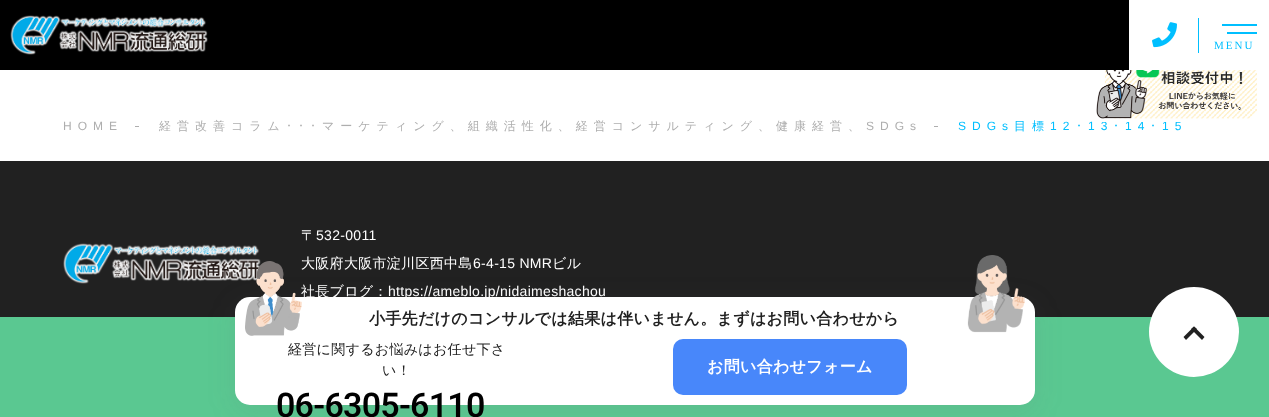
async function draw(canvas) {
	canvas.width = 1269;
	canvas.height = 417;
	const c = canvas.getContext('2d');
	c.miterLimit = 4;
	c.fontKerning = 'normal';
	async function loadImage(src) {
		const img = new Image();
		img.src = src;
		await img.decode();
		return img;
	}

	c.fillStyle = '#fff';
	c.fillRect(0, 0, 1269, 417);
	c.fillStyle = '#000';
	c.fillRect(0, 0, 1129, 70);
	c.drawImage(await loadImage('img1.png'), 10, 15, 198, 40);
	c.drawImage(await loadImage('img2.png'), 1152, 22, 25, 26);
	for (const [x, y, w, h, color] of [
		[1198, 18, 1, 35, '#00bfff'],
		[1222, 24, 35, 2, '#00bfff'],
		[1227, 32, 30, 2, '#00bfff'],
	]) {
		c.fillStyle = color;
		c.fillRect(x, y, w, h);
	}
	c.letterSpacing = '2px';
	c.font = '11px Liberation Serif';
	c.fillText('MENU', 1214, 49);
	c.letterSpacing = '6px';
	c.font = '12px Liberation Sans';
	for (const [text, x, y] of [
		['13', 1088, 130],
		['14', 1125, 130],
		['15', 1162, 130],
	]) {
		c.fillText(text, x, y);
	}
	c.drawImage(await loadImage('img3.png'), 1096, 70, 161, 52);
	c.fillStyle = '#aeaeae';
	c.fillText('HOME', 63, 130);
	c.fillRect(135, 126, 4, 1);
	c.font = '500 12px WenQuanYi Zen Hei';
	c.fillText('経営改善コラム', 159, 130);
	c.font = '12px IPAPGothic';
	c.fillText('･･･', 286, 130);
	c.font = '500 12px WenQuanYi Zen Hei';
	c.fillText('マーケティング、組織活性化、経営コンサルティング、健康経営、', 322, 130);
	c.font = '12px Liberation Sans';
	c.fillText('SDGs', 866, 130);
	c.fillRect(934, 126, 4, 1);
	c.fillStyle = '#00bfff';
	c.fillText('SDGs', 958, 130);
	c.font = '500 12px WenQuanYi Zen Hei';
	c.fillText('目標', 1014, 130);
	c.font = '12px Liberation Sans';
	c.fillText('12', 1050, 130);
	c.font = '12px IPAPGothic';
	for (const [text, x, y] of [
		['･', 1076, 130],
		['･', 1113, 130],
		['･', 1150, 130],
	]) {
		c.fillText(text, x, y);
	}
	c.fillStyle = '#212121';
	c.fillRect(0, 161, 1269, 156);
	c.drawImage(await loadImage('img4.png'), 63, 243, 198, 41);
	c.letterSpacing = '0.3px';
	c.font = '500 14px WenQuanYi Zen Hei';
	c.fillStyle = '#fff';
	c.fillText('〒', 301, 240);
	c.font = '14px Liberation Sans';
	c.fillText('532-0011', 316, 240);
	c.font = '500 14px WenQuanYi Zen Hei';
	c.fillText('大阪府大阪市淀川区西中島', 301, 268);
	c.font = '14px Liberation Sans';
	c.fillText('6-4-15 NMR', 473, 268);
	c.font = '500 14px WenQuanYi Zen Hei';
	c.fillText('ビル', 552, 268);
	c.fillText('社長ブログ：', 301, 296);
	c.font = '14px Liberation Sans';
	c.fillText('https://ameblo.jp/nidaimeshachou', 388, 296);
	c.fillStyle = '#5ac891';
	c.fillRect(0, 317, 1269, 100);
	c.fillStyle = '#64646f1a';
	c.filter = 'blur(14.5px)';
	c.beginPath();
	c.roundRect(235, 304, 800, 108, 15);
	c.fill();
	c.filter = 'none';
	c.fillStyle = '#fff';
	c.beginPath();
	c.roundRect(235, 297, 800, 108, 15);
	c.fill();
	c.drawImage(await loadImage('img5.png'), 245, 261, 57, 75);
	c.font = 'bold 16px WenQuanYi Zen Hei';
	c.fillStyle = '#212121';
	c.fillText('小手先だけのコンサルでは結果は伴いません。まずはお問い合わせから', 369, 324);
	c.drawImage(await loadImage('img6.png'), 967, 255, 58, 78);
	c.font = '500 14px WenQuanYi Zen Hei';
	c.fillText('経営に関するお悩みはお任せ下さ', 288, 354);
	c.fillText('い！', 382, 375);
	c.letterSpacing = '-0.75px';
	c.font = '600 34px Heebo';
	c.fillStyle = '#000';
	c.fillText('06-6305-6110', 276, 417);
	c.fillStyle = '#4887fa';
	c.beginPath();
	c.roundRect(673, 339, 234, 56, 10);
	c.fill();
	c.letterSpacing = '0.3px';
	c.font = 'bold 16px WenQuanYi Zen Hei';
	c.fillStyle = '#fff';
	c.fillText('お問い合わせフォーム', 707, 372);
	c.beginPath();
	c.arc(1194, 332, 45, 0, 2 * Math.PI);
	c.fill();
	c.fillStyle = '#212121';
	c.beginPath();
	c.moveTo(1194, 326.5);
	c.lineTo(1204.5, 337);
	c.lineTo(1202, 340);
	c.lineTo(1191, 329);
	c.closePath();
	c.fill();
	c.beginPath();
	c.moveTo(1194, 326.5);
	c.lineTo(1197, 329);
	c.lineTo(1186, 340);
	c.lineTo(1183.5, 337);
	c.closePath();
	c.fill();
}

draw(document.querySelector('canvas'));
